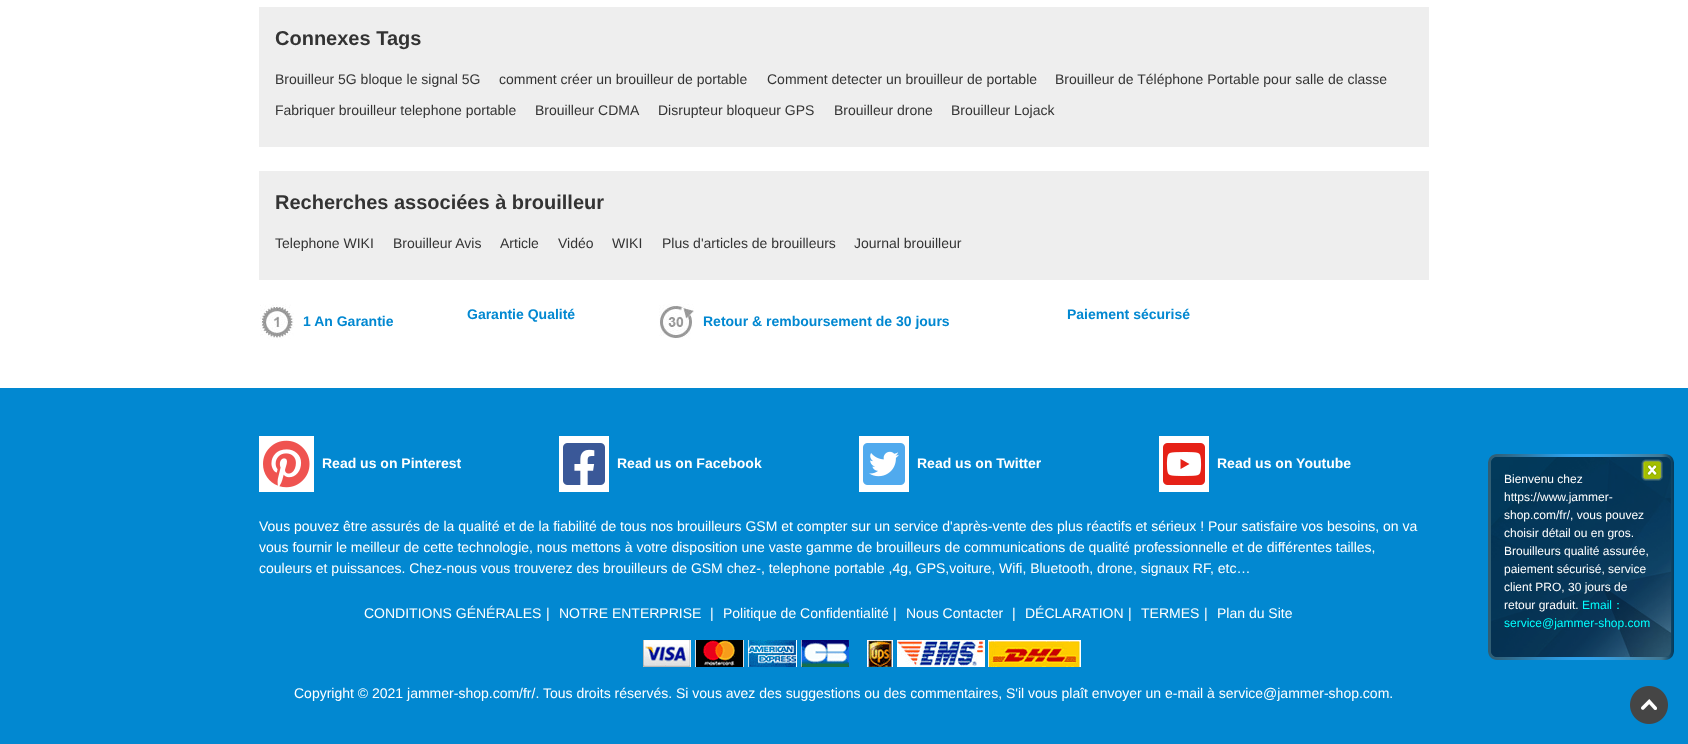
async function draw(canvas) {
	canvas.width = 1688;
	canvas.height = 744;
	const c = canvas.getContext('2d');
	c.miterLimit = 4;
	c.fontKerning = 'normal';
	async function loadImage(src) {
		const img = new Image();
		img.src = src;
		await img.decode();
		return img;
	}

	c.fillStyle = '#fff';
	c.fillRect(0, 0, 1688, 744);
	c.fillStyle = '#eee';
	c.fillRect(259, 7, 1170, 140);
	c.font = 'bold 20px Liberation Sans';
	c.fillStyle = '#333';
	c.fillText('Connexes Tags', 275, 45);
	c.font = '14px Liberation Sans';
	for (const [text, x, y] of [
		['Brouilleur 5G bloque le signal 5G', 275, 84],
		['comment créer un brouilleur de portable', 499, 84],
		['Comment detecter un brouilleur de portable', 767, 84],
		['Brouilleur de Téléphone Portable pour salle de classe', 1055, 84],
		['Fabriquer brouilleur telephone portable', 275, 115],
		['Brouilleur CDMA', 535, 115],
		['Disrupteur bloqueur GPS', 658, 115],
		['Brouilleur drone', 834, 115],
		['Brouilleur Lojack', 951, 115],
	]) {
		c.fillText(text, x, y);
	}
	c.fillStyle = '#eee';
	c.fillRect(259, 171, 1170, 109);
	c.font = 'bold 20px Liberation Sans';
	c.fillStyle = '#333';
	c.fillText('Recherches associées à brouilleur', 275, 209);
	c.font = '14px Liberation Sans';
	for (const [text, x, y] of [
		['Telephone WIKI', 275, 248],
		['Brouilleur Avis', 393, 248],
		['Article', 500, 248],
		['Vidéo', 558, 248],
		['WIKI', 612, 248],
		['Plus d\'articles de brouilleurs', 662, 248],
		['Journal brouilleur', 854, 248],
	]) {
		c.fillText(text, x, y);
	}
	c.drawImage(await loadImage('img1.png'), 260, 304, 34, 36);
	c.font = 'bold 14px Liberation Sans';
	c.fillStyle = '#0288d1';
	c.fillText('1 An Garantie', 303, 326);
	c.fillText('Garantie Qualité', 467, 319);
	c.drawImage(await loadImage('img2.png'), 659, 304, 35, 35);
	c.fillText('Retour & remboursement de 30 jours', 703, 326);
	c.fillText('Paiement sécurisé', 1067, 319);
	c.fillRect(0, 388, 1688, 356);
	c.fillStyle = '#fff';
	c.fillRect(259, 436, 55, 56);
	c.drawImage(await loadImage('img3.png'), 263, 440, 47, 48);
	c.fillText('Read us on Pinterest', 322, 468);
	c.fillRect(559, 436, 50, 56);
	c.drawImage(await loadImage('img4.png'), 563, 443, 42, 42);
	c.fillText('Read us on Facebook', 617, 468);
	c.fillRect(859, 436, 50, 56);
	c.drawImage(await loadImage('img5.png'), 863, 443, 42, 42);
	c.fillText('Read us on Twitter', 917, 468);
	c.fillRect(1159, 436, 50, 56);
	c.drawImage(await loadImage('img6.png'), 1163, 443, 42, 42);
	c.fillText('Read us on Youtube', 1217, 468);
	c.font = '14px Liberation Sans';
	for (const [text, x, y] of [
		['Vous pouvez être assurés de la qualité et de la fiabilité de tous nos brouilleurs GSM et compter sur un service d\'après-vente des plus réactifs et sérieux ! Pour satisfaire vos besoins, on va', 259, 531],
		['vous fournir le meilleur de cette technologie, nous mettons à votre disposition une vaste gamme de brouilleurs de communications de qualité professionnelle et de différentes tailles,', 259, 552],
		['couleurs et puissances. Chez-nous vous trouverez des brouilleurs de GSM chez-, telephone portable ,4g, GPS,voiture, Wifi, Bluetooth, drone, signaux RF, etc…', 259, 573],
		['CONDITIONS GÉNÉRALES', 364, 618],
		['|', 546, 618],
		['NOTRE ENTERPRISE', 559, 618],
		['|', 710, 618],
		['Politique de Confidentialité', 723, 618],
		['|', 893, 618],
		['Nous Contacter', 906, 618],
		['|', 1012, 618],
		['DÉCLARATION', 1025, 618],
		['|', 1128, 618],
		['TERMES', 1141, 618],
		['|', 1204, 618],
		['Plan du Site', 1217, 618],
	]) {
		c.fillText(text, x, y);
	}
	c.drawImage(await loadImage('img7.png'), 643, 640, 438, 27);
	c.fillText('Copyright © 2021 jammer-shop.com/fr/. Tous droits réservés. Si vous avez des suggestions ou des commentaires, S\'il vous plaît envoyer un e-mail à service@jammer-shop.com.', 294, 698);
	c.drawImage(await loadImage('img8.png'), 1488, 454, 186, 206);
	c.drawImage(await loadImage('img9.png'), 1641, 459, 22, 22);
	c.font = '12px Liberation Sans';
	for (const [text, x, y] of [
		['Bienvenu chez', 1504, 483],
		['https://www.jammer-', 1504, 501],
		['shop.com/fr/, vous pouvez', 1504, 519],
		['choisir détail ou en gros.', 1504, 537],
		['Brouilleurs qualité assurée,', 1504, 555],
		['paiement sécurisé, service', 1504, 573],
		['client PRO, 30 jours de', 1504, 591],
		['retour graduit.', 1504, 609],
	]) {
		c.fillText(text, x, y);
	}
	c.fillStyle = '#0ff';
	c.fillText('Email', 1582, 609);
	c.font = '500 12px WenQuanYi Zen Hei';
	c.fillText('：', 1612, 609);
	c.font = '12px Liberation Sans';
	c.fillText('service@jammer-shop.com', 1504, 627);
	c.drawImage(await loadImage('img10.png'), 1630, 686, 38, 38);
}

draw(document.querySelector('canvas'));
